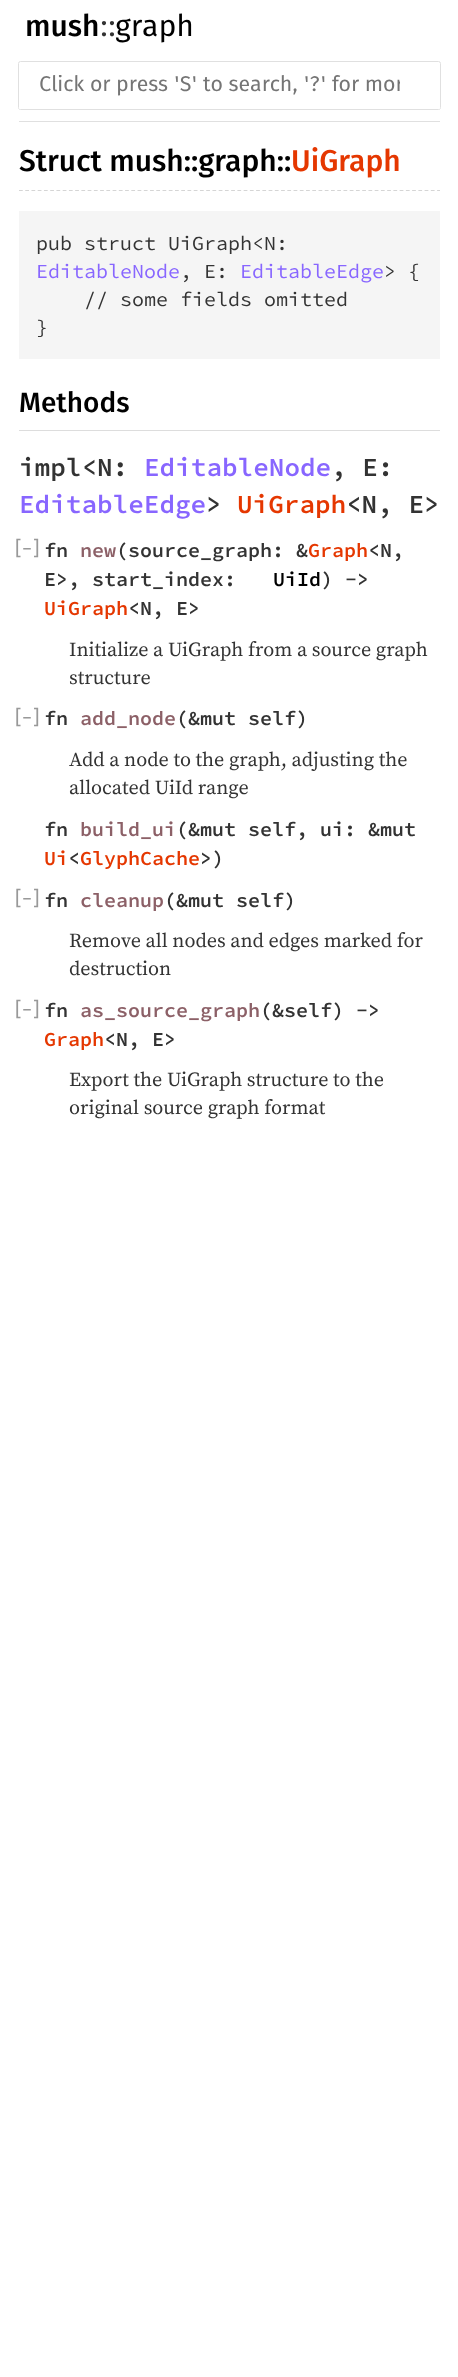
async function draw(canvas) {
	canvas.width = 458;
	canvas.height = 2377;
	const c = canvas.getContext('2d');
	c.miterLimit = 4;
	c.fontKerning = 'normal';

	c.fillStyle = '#fff';
	c.fillRect(0, 0, 458, 2377);
	c.font = '500 30px Fira Sans';
	c.fillStyle = '#000';
	c.fillText('mush', 25, 36);
	c.font = '30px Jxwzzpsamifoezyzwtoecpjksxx';
	c.fillStyle = '#333';
	c.fillText('::', 100, 36);
	c.fillStyle = '#000';
	c.fillText('graph', 115, 36);
	c.fillStyle = '#e0e0e0';
	c.fillRect(19, 121, 421, 1);
	c.beginPath();
	c.roundRect(18.5, 61.5, 422, 48, 2);
	c.strokeStyle = '#e0e0e0';
	c.stroke();
	c.fillStyle = '#fff';
	c.beginPath();
	c.roundRect(19, 63, 421, 46, 1);
	c.fill();
	c.save();
	c.beginPath();
	c.rect(39, 75, 361, 21);
	c.clip();
	c.font = '21.25px Jxwzzpsamifoezyzwtoecpjksxx';
	c.fillStyle = '#757575';
	c.fillText('Click or press \'S\' to search, \'?\' for mor', 39, 91);
	c.restore();
	c.beginPath();
	c.moveTo(19, 190.5);
	c.lineTo(440, 190.5);
	c.strokeStyle = '#d5d5d5';
	c.lineWidth = 1.2;
	c.setLineDash([3.75, 2.49]);
	c.stroke();
	c.font = '500 30px Fira Sans';
	c.fillStyle = '#000';
	c.fillText('Struct mush::graph::', 19, 171);
	c.fillStyle = '#e53700';
	c.fillText('UiGraph', 291, 171);
	c.fillStyle = '#f5f5f5';
	c.fillRect(19, 211, 421, 148);
	c.font = '20px Source Code Pro';
	c.fillStyle = '#333';
	c.fillText('pub struct UiGraph<N:', 36, 250);
	c.fillStyle = '#86f';
	c.fillText('EditableNode', 36, 278);
	c.fillStyle = '#333';
	c.fillText(', E:', 180, 278);
	c.fillStyle = '#86f';
	c.fillText('EditableEdge', 240, 278);
	c.fillStyle = '#333';
	for (const [text, x, y] of [
		['> {', 384, 278],
		['// some fields omitted', 84, 306],
		['}', 36, 334],
	]) {
		c.fillText(text, x, y);
	}
	c.fillStyle = '#ddd';
	c.fillRect(19, 430, 421, 1);
	c.font = '500 28px Fira Sans';
	c.fillStyle = '#000';
	c.fillText('Methods', 19, 412);
	c.font = '600 26px Source Code Pro';
	c.fillStyle = '#333';
	c.fillText('impl<N:', 19, 476);
	c.fillStyle = '#86f';
	c.fillText('EditableNode', 144, 476);
	c.fillStyle = '#333';
	c.fillText(', E:', 331, 476);
	c.fillStyle = '#86f';
	c.fillText('EditableEdge', 19, 513);
	c.fillStyle = '#333';
	c.fillText('>', 206, 513);
	c.fillStyle = '#e53700';
	c.fillText('UiGraph', 237, 513);
	c.fillStyle = '#333';
	c.fillText('<N, E>', 346, 513);
	c.font = '20px Jxwzzpsamifoezyzwtoecpjksxx';
	c.fillStyle = '#999';
	for (const [text, x, y] of [
		['[', 15, 555],
		['−', 22, 555],
		[']', 33, 555],
	]) {
		c.fillText(text, x, y);
	}
	c.font = '600 20px Source Code Pro';
	c.fillStyle = '#333';
	c.fillText('fn', 44, 557);
	c.fillStyle = '#8c6067';
	c.fillText('new', 80, 557);
	c.fillStyle = '#333';
	c.fillText('(source_graph: &', 116, 557);
	c.fillStyle = '#e53700';
	c.fillText('Graph', 308, 557);
	c.fillStyle = '#333';
	c.fillText('<N,', 368, 557);
	c.fillText('E>, start_index:', 44, 586);
	c.fillStyle = '#000';
	c.fillText('UiId', 273, 586);
	c.fillStyle = '#333';
	c.fillText(') ->', 321, 586);
	c.fillStyle = '#e53700';
	c.fillText('UiGraph', 44, 615);
	c.fillStyle = '#333';
	c.fillText('<N, E>', 128, 615);
	c.font = '20px Source Serif Pro';
	c.fillText('Initialize a UiGraph from a source graph', 69, 656);
	c.fillText('structure', 69, 684);
	c.font = '20px Jxwzzpsamifoezyzwtoecpjksxx';
	c.fillStyle = '#999';
	for (const [text, x, y] of [
		['[', 15, 724],
		['−', 22, 724],
		[']', 33, 724],
	]) {
		c.fillText(text, x, y);
	}
	c.font = '600 20px Source Code Pro';
	c.fillStyle = '#333';
	c.fillText('fn', 44, 725);
	c.fillStyle = '#8c6067';
	c.fillText('add_node', 80, 725);
	c.fillStyle = '#333';
	c.fillText('(&mut self)', 176, 725);
	c.font = '20px Source Serif Pro';
	c.fillText('Add a node to the graph, adjusting the', 69, 766);
	c.fillText('allocated UiId range', 69, 794);
	c.font = '600 20px Source Code Pro';
	c.fillText('fn', 44, 836);
	c.fillStyle = '#8c6067';
	c.fillText('build_ui', 80, 836);
	c.fillStyle = '#333';
	c.fillText('(&mut self, ui: &mut', 176, 836);
	c.fillStyle = '#e53700';
	c.fillText('Ui GlyphCache', 44, 865);
	c.fillStyle = '#333';
	c.fillText('>)', 200, 865);
	c.fillText('<', 68, 865);
	c.font = '20px Jxwzzpsamifoezyzwtoecpjksxx';
	c.fillStyle = '#999';
	for (const [text, x, y] of [
		['[', 15, 905],
		['−', 22, 905],
		[']', 33, 905],
	]) {
		c.fillText(text, x, y);
	}
	c.font = '600 20px Source Code Pro';
	c.fillStyle = '#333';
	c.fillText('fn', 44, 907);
	c.fillStyle = '#8c6067';
	c.fillText('cleanup', 80, 907);
	c.fillStyle = '#333';
	c.fillText('(&mut self)', 164, 907);
	c.font = '20px Source Serif Pro';
	c.fillText('Remove all nodes and edges marked for', 69, 947);
	c.fillText('destruction', 69, 975);
	c.font = '20px Jxwzzpsamifoezyzwtoecpjksxx';
	c.fillStyle = '#999';
	for (const [text, x, y] of [
		['[', 15, 1016],
		['−', 22, 1016],
		[']', 33, 1016],
	]) {
		c.fillText(text, x, y);
	}
	c.font = '600 20px Source Code Pro';
	c.fillStyle = '#333';
	c.fillText('fn', 44, 1017);
	c.fillStyle = '#8c6067';
	c.fillText('as_source_graph', 80, 1017);
	c.fillStyle = '#333';
	c.fillText('(&self) ->', 260, 1017);
	c.fillStyle = '#e53700';
	c.fillText('Graph', 44, 1046);
	c.fillStyle = '#333';
	c.fillText('<N, E>', 104, 1046);
	c.font = '20px Source Serif Pro';
	c.fillText('Export the UiGraph structure to the', 69, 1086);
	c.fillText('original source graph format', 69, 1114);
}

draw(document.querySelector('canvas'));
